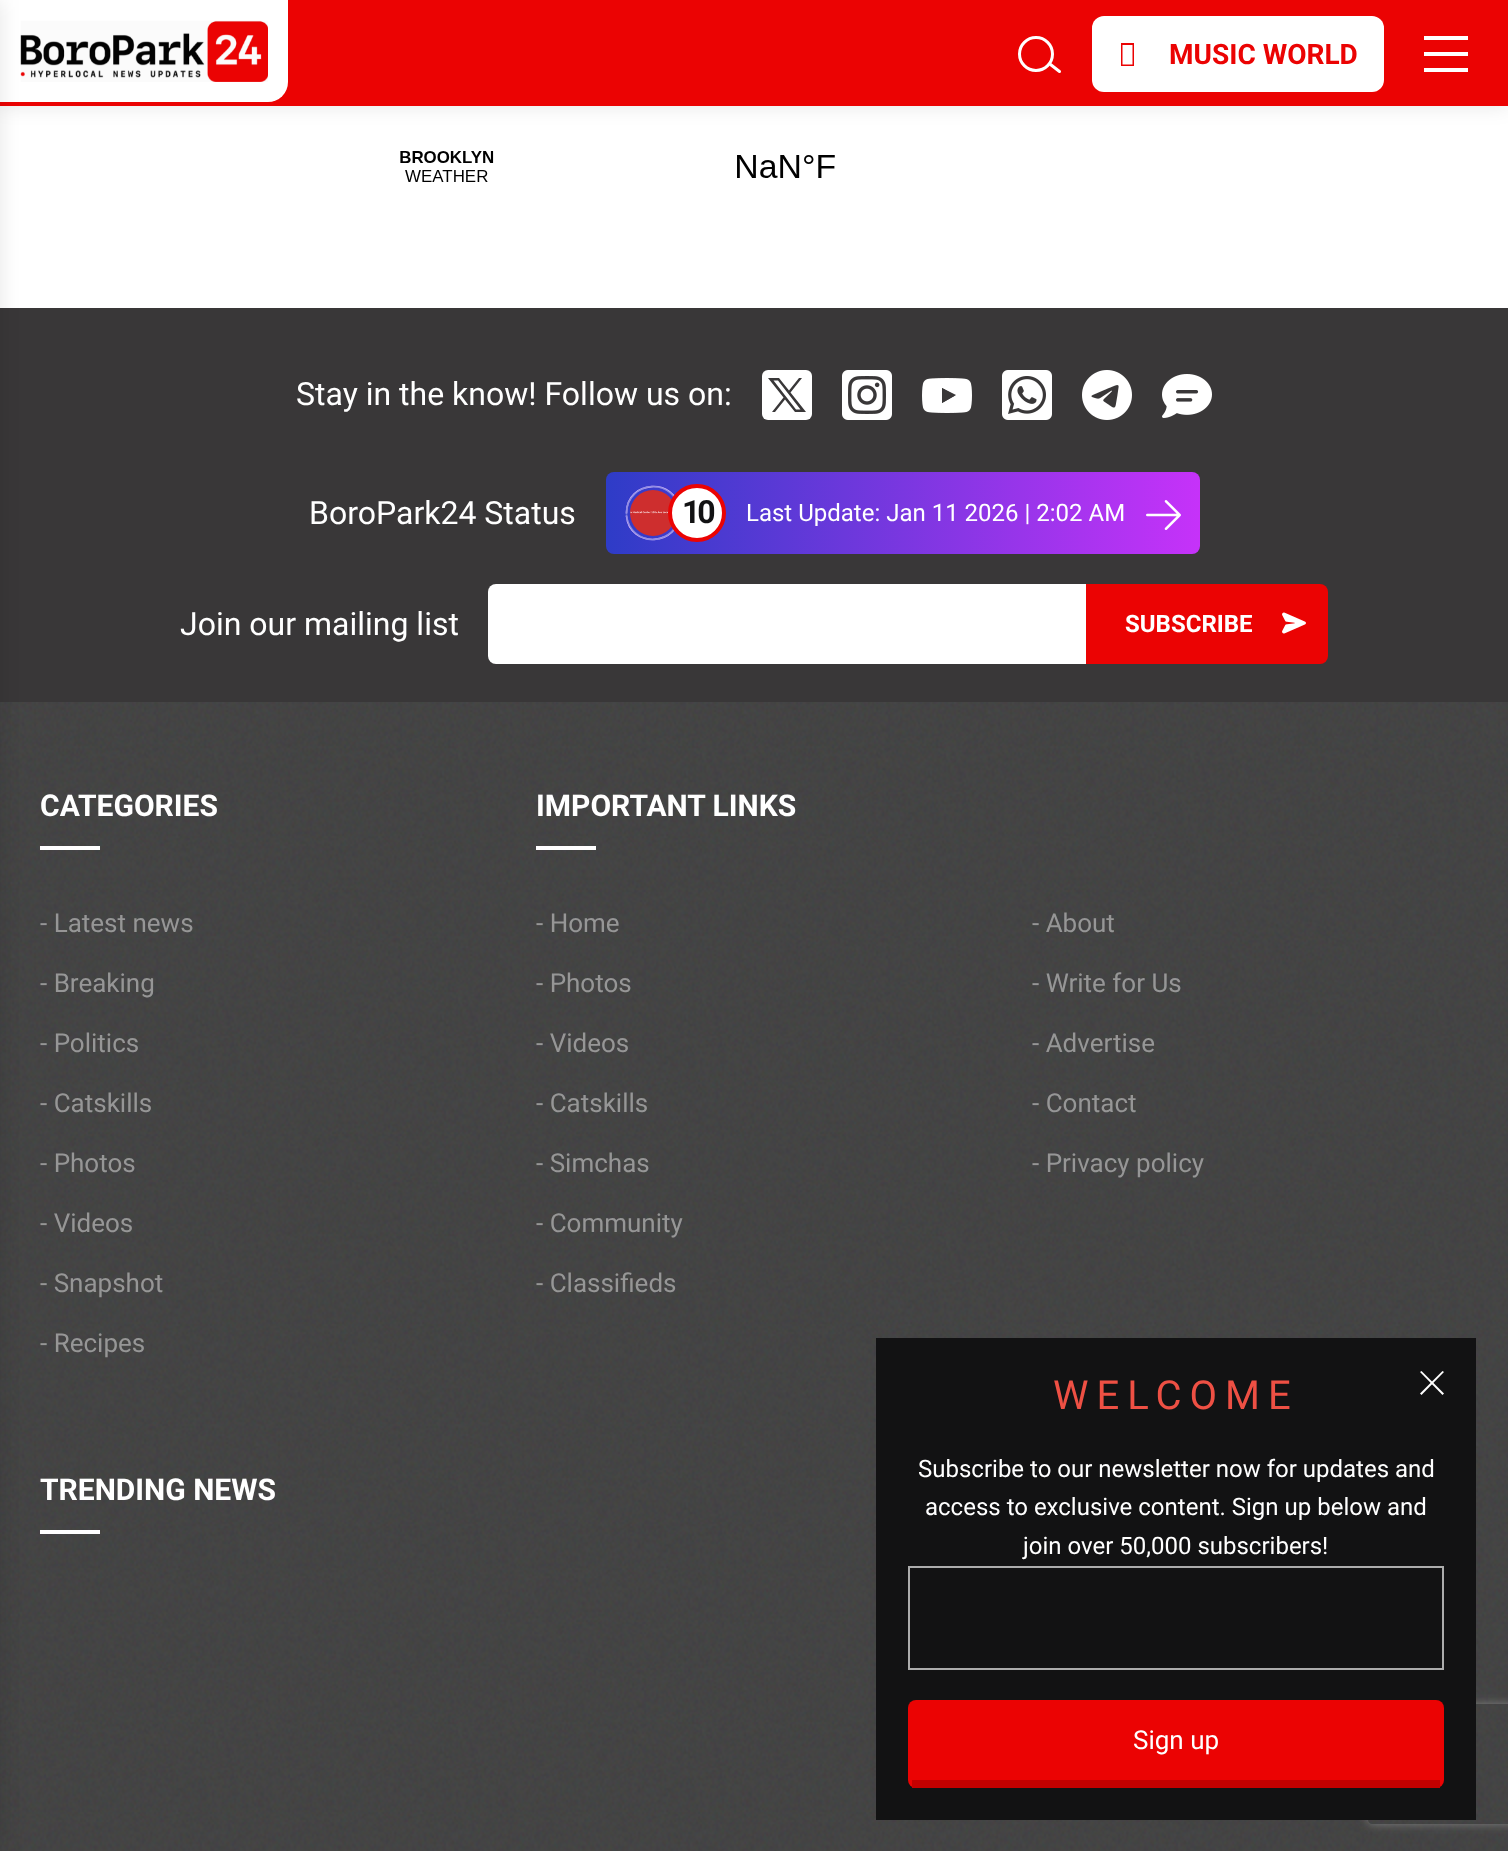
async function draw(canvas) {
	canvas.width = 1508;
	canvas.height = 1851;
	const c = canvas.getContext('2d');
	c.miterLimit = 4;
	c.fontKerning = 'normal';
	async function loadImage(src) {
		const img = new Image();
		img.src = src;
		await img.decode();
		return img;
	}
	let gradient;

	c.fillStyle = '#fff';
	c.fillRect(0, 0, 1508, 1851);
	c.fillStyle = '#0000001a';
	c.filter = 'blur(10px)';
	c.beginPath();
	c.rect(0, 0, 1508, 106);
	c.fill();
	c.filter = 'none';
	c.fillStyle = '#eb0303';
	c.fillRect(0, 0, 1508, 106);
	c.fillStyle = '#fff';
	c.beginPath();
	c.roundRect(0, 0, 288, 102, [0, 0, 20, 0]);
	c.fill();
	c.drawImage(await loadImage('img1.png'), 20, 20, 248, 62);
	c.fillStyle = '#393738';
	c.fillRect(0, 308, 1508, 394);
	c.drawImage(await loadImage('img11.png'), 0, 702, 1508, 1149);
	c.fillStyle = '#0000001a';
	c.filter = 'blur(10px)';
	c.beginPath();
	c.rect(-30, 0, 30, 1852);
	c.fill();
	c.filter = 'none';
	c.beginPath();
	c.arc(1036, 54, 16.5, 0, 2 * Math.PI);
	c.strokeStyle = '#fff';
	c.lineWidth = 3;
	c.stroke();
	c.beginPath();
	c.moveTo(1050.5, 64.5);
	c.lineTo(1059.5, 71.5);
	c.lineCap = 'round';
	c.stroke();
	c.fillStyle = '#fff';
	c.beginPath();
	c.roundRect(1092, 16, 292, 76, 12);
	c.fill();
	c.fillStyle = '#eb0303';
	c.beginPath();
	c.moveTo(1121, 66);
	c.lineTo(1121, 43);
	c.lineTo(1134, 43);
	c.lineTo(1134, 66);
	c.closePath();
	c.moveTo(1122.5, 64.5);
	c.lineTo(1132.5, 64.5);
	c.lineTo(1132.5, 45);
	c.lineTo(1122.5, 45);
	c.closePath();
	c.fill();
	c.font = 'bold 28px Roboto';
	c.fillText('MUSIC WORLD', 1169, 64);
	for (const [x, y, w, h, color] of [
		[1424, 36, 44, 4, '#fff'],
		[1424, 52, 44, 4, '#fff'],
		[1424, 68, 44, 4, '#fff'],
	]) {
		c.fillStyle = color;
		c.fillRect(x, y, w, h);
	}
	c.drawImage(await loadImage('img2.png'), 400, 151, 435, 31);
	c.font = '32px Roboto';
	c.fillText('Stay in the know! Follow us on:', 296, 405);
	c.beginPath();
	c.roundRect(762, 370, 50, 50, 6);
	c.fill();
	c.fillStyle = '#393738';
	c.beginPath();
	c.moveTo(790.5, 392.5);
	c.lineTo(802, 378);
	c.lineTo(799, 378);
	c.lineTo(789, 390.5);
	c.lineTo(779, 378);
	c.lineTo(768, 378);
	c.lineTo(783.5, 397.5);
	c.lineTo(772, 412);
	c.lineTo(775, 412);
	c.lineTo(785, 399.5);
	c.lineTo(795, 412);
	c.lineTo(806, 412);
	c.closePath();
	c.moveTo(773.5, 380.5);
	c.lineTo(778, 380.5);
	c.lineTo(800.5, 409.5);
	c.lineTo(796, 409.5);
	c.closePath();
	c.fill();
	c.drawImage(await loadImage('img3.png'), 842, 370, 50, 50);
	c.drawImage(await loadImage('img4.png'), 922, 378, 50, 35);
	c.drawImage(await loadImage('img5.png'), 1002, 370, 50, 50);
	c.drawImage(await loadImage('img6.png'), 1082, 370, 50, 50);
	c.drawImage(await loadImage('img7.png'), 1162, 374, 50, 44);
	c.fillStyle = '#fff';
	c.fillText('BoroPark24 Status', 309, 524);
	gradient = c.createLinearGradient(606, 513, 1200, 513);
	gradient.addColorStop(0, '#2e3cc7');
	gradient.addColorStop(1, '#c632f9');
	c.fillStyle = gradient;
	c.beginPath();
	c.roundRect(606, 472, 594, 82, 8);
	c.fill();
	c.drawImage(await loadImage('img8.png'), 630, 490, 42, 46);
	c.beginPath();
	c.moveTo(626.5, 513);
	c.bezierCurveTo(626.5, 479.5, 676, 477, 679.5, 510);
	c.moveTo(679.5, 513);
	c.bezierCurveTo(679.5, 546.5, 630, 549, 626.5, 516);
	c.strokeStyle = '#e7c1ff';
	c.lineWidth = 1.7;
	c.stroke();
	c.beginPath();
	c.moveTo(626.5, 513);
	c.bezierCurveTo(626.5, 498.5, 638.5, 486.5, 653, 486.5);
	c.bezierCurveTo(667.5, 486.5, 679.5, 498.5, 679.5, 513);
	c.bezierCurveTo(679.5, 527.5, 667.5, 539.5, 653, 539.5);
	c.bezierCurveTo(638.5, 539.5, 626.5, 527.5, 626.5, 513);
	c.closePath();
	c.strokeStyle = '#6d77d8b3';
	c.setLineDash([80.95, 2.9, 80.95, 2.9, 0, 0]);
	c.stroke();
	c.fillStyle = '#fff';
	c.beginPath();
	c.arc(697, 513, 27, 0, 2 * Math.PI);
	c.fill();
	c.strokeStyle = '#eb0303';
	c.lineWidth = 4;
	c.setLineDash([]);
	c.stroke();
	c.letterSpacing = '-3px';
	c.font = 'bold 32px Roboto';
	c.fillStyle = '#121213';
	c.fillText('10', 682, 523);
	c.letterSpacing = '0px';
	c.font = '24px Roboto';
	c.fillStyle = '#fff';
	c.fillText('Last Update: Jan 11 2026 | 2:02 AM', 746, 521);
	c.drawImage(await loadImage('img9.png'), 1146, 500, 35, 30);
	c.font = '32px Roboto';
	c.fillText('Join our mailing list', 180, 635);
	c.beginPath();
	c.roundRect(488, 584, 598, 80, [8, 0, 0, 8]);
	c.fill();
	c.fillStyle = '#eb0303';
	c.beginPath();
	c.roundRect(1086, 584, 242, 80, [0, 8, 8, 0]);
	c.fill();
	c.font = 'bold 24px Roboto';
	c.fillStyle = '#fff';
	c.fillText('SUBSCRIBE', 1125, 632);
	c.drawImage(await loadImage('img10.png'), 1282, 612, 24, 22);
	c.font = 'bold 30px Roboto';
	c.fillText('CATEGORIES', 40, 816);
	c.fillRect(40, 846, 60, 4);
	c.font = '26px Roboto';
	c.fillStyle = '#969696';
	for (const [text, x, y] of [
		['- Latest news', 40, 932],
		['- Breaking', 40, 992],
		['- Politics', 40, 1052],
		['- Catskills', 40, 1112],
		['- Photos', 40, 1172],
		['- Videos', 40, 1232],
		['- Snapshot', 40, 1292],
		['- Recipes', 40, 1352],
	]) {
		c.fillText(text, x, y);
	}
	c.font = 'bold 30px Roboto';
	c.fillStyle = '#fff';
	c.fillText('IMPORTANT LINKS', 536, 816);
	c.fillRect(536, 846, 60, 4);
	c.font = '26px Roboto';
	c.fillStyle = '#969696';
	for (const [text, x, y] of [
		['- Home', 536, 932],
		['- Photos', 536, 992],
		['- Videos', 536, 1052],
		['- Catskills', 536, 1112],
		['- Simchas', 536, 1172],
		['- Community', 536, 1232],
		['- Classifieds', 536, 1292],
		['- About', 1032, 932],
		['- Write for Us', 1032, 992],
		['- Advertise', 1032, 1052],
		['- Contact', 1032, 1112],
		['- Privacy policy', 1032, 1172],
	]) {
		c.fillText(text, x, y);
	}
	c.font = 'bold 30px Roboto';
	c.fillStyle = '#fff';
	c.fillText('TRENDING NEWS', 40, 1500);
	c.fillRect(40, 1530, 60, 4);
	c.save();
	c.beginPath();
	c.moveTo(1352, 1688);
	c.lineTo(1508, 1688);
	c.lineTo(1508, 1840);
	c.lineTo(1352, 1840);
	c.closePath();
	c.moveTo(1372, 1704);
	c.lineTo(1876, 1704);
	c.bezierCurveTo(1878, 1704, 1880, 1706, 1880, 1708);
	c.lineTo(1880, 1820);
	c.bezierCurveTo(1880, 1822, 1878, 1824, 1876, 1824);
	c.lineTo(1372, 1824);
	c.bezierCurveTo(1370, 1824, 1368, 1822, 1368, 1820);
	c.lineTo(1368, 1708);
	c.bezierCurveTo(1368, 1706, 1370, 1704, 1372, 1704);
	c.closePath();
	c.clip('evenodd');
	c.fillStyle = '#808080';
	c.filter = 'blur(5px)';
	c.beginPath();
	c.roundRect(1368, 1704, 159, 120, 4);
	c.fill();
	c.filter = 'none';
	c.restore();
	c.fillStyle = '#121213';
	c.fillRect(876, 1338, 600, 482);
	c.fillStyle = '#fff';
	c.beginPath();
	c.moveTo(1442.5, 1371);
	c.lineTo(1444, 1372);
	c.lineTo(1421.5, 1395);
	c.lineTo(1420, 1393.5);
	c.closePath();
	c.fill();
	c.beginPath();
	c.moveTo(1420, 1372);
	c.lineTo(1421.5, 1371);
	c.lineTo(1444, 1393.5);
	c.lineTo(1442.5, 1395);
	c.closePath();
	c.fill();
	c.letterSpacing = '8px';
	c.font = '40px Roboto';
	c.fillStyle = '#ee5044';
	c.fillText('WELCOME', 1053, 1409);
	c.letterSpacing = '0px';
	c.font = '24px Roboto';
	c.fillStyle = '#fff';
	for (const [text, x, y] of [
		['Subscribe to our newsletter now for updates and', 918, 1477],
		['access to exclusive content. Sign up below and', 925, 1515],
		['join over 50,000 subscribers!', 1023, 1554],
	]) {
		c.fillText(text, x, y);
	}
	c.strokeStyle = '#acacac';
	c.lineWidth = 2;
	c.strokeRect(909, 1567, 534, 102);
	c.fillStyle = '#eb0303';
	c.beginPath();
	c.roundRect(908, 1700, 536, 88, 8);
	c.fill();
	c.fillStyle = '#c30000';
	c.fillRect(912, 1780, 528, 8);
	c.font = '26px Roboto';
	c.fillStyle = '#fff';
	c.fillText('Sign up', 1133, 1749);
}

draw(document.querySelector('canvas'));
